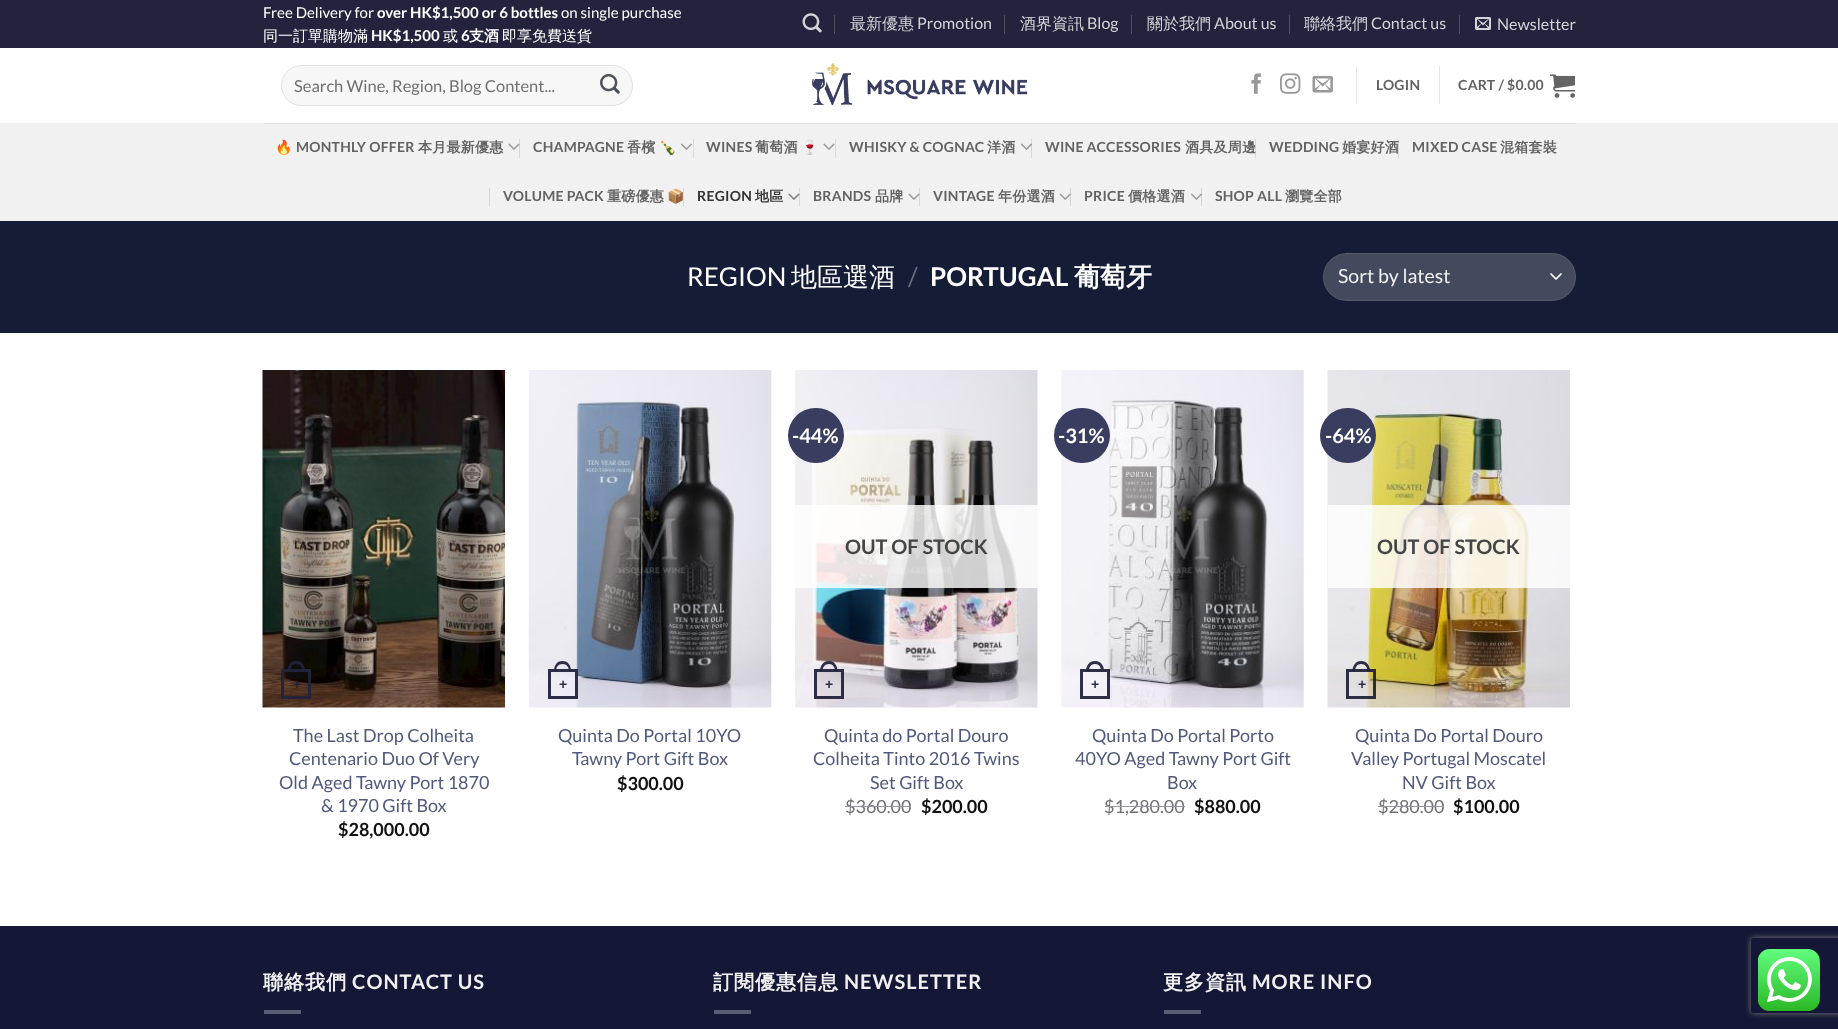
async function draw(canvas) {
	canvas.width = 1838;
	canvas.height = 1029;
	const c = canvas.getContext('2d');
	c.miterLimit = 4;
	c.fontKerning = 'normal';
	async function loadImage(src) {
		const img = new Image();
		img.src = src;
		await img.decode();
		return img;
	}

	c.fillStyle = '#fff';
	c.fillRect(0, 0, 1838, 1029);
	c.fillStyle = '#23233d';
	c.fillRect(0, 0, 1838, 48);
	c.font = '15px Lato';
	c.fillStyle = '#fff';
	c.fillText('Free Delivery for', 263, 18);
	c.font = 'bold 15px Lato';
	c.fillText('over HK$1,500 or 6 bottles', 377, 18);
	c.font = '15px Lato';
	c.fillText('on single purchase', 561, 18);
	c.font = '500 15px WenQuanYi Zen Hei';
	c.fillText('同一訂單購物滿', 263, 41);
	c.font = 'bold 15px Lato';
	c.fillText('HK$1,500', 371, 41);
	c.font = '500 15px WenQuanYi Zen Hei';
	c.fillText('或', 443, 41);
	c.font = 'bold 15px Lato';
	c.fillText('6', 461, 41);
	c.font = 'bold 15px WenQuanYi Zen Hei';
	c.fillText('支酒', 469, 41);
	c.font = '500 15px WenQuanYi Zen Hei';
	c.fillText('即享免費送貨', 502, 41);
	c.drawImage(await loadImage('img1.png'), 802, 13, 20, 20);
	c.fillStyle = '#4f4f64';
	c.fillRect(834, 15, 1, 19);
	c.font = '500 16px WenQuanYi Zen Hei';
	c.fillStyle = '#d3d3d8';
	c.fillText('最新優惠', 850, 29);
	c.font = '16px Lato';
	c.fillText('Promotion', 917, 29);
	c.fillStyle = '#4f4f64';
	c.fillRect(1004, 15, 1, 19);
	c.font = '500 16px WenQuanYi Zen Hei';
	c.fillStyle = '#d3d3d8';
	c.fillText('酒界資訊', 1020, 29);
	c.font = '16px Lato';
	c.fillText('Blog', 1087, 29);
	c.fillStyle = '#4f4f64';
	c.fillRect(1131, 15, 1, 19);
	c.font = '500 16px WenQuanYi Zen Hei';
	c.fillStyle = '#d3d3d8';
	c.fillText('關於我們', 1147, 29);
	c.font = '16px Lato';
	c.fillText('About us', 1214, 29);
	c.fillStyle = '#4f4f64';
	c.fillRect(1289, 15, 1, 19);
	c.font = '500 16px WenQuanYi Zen Hei';
	c.fillStyle = '#d3d3d8';
	c.fillText('聯絡我們', 1304, 29);
	c.font = '16px Lato';
	c.fillText('Contact us', 1371, 29);
	c.fillStyle = '#4f4f64';
	c.fillRect(1459, 15, 1, 19);
	c.drawImage(await loadImage('img2.png'), 1475, 17, 16, 13);
	c.fillStyle = '#d3d3d8';
	c.fillText('Newsletter', 1497, 30);
	c.fillStyle = '#f7f7f7';
	c.beginPath();
	c.roundRect(281, 65, 352, 41, 20.5);
	c.fill();
	c.beginPath();
	c.roundRect(281.5, 65.5, 351, 40, 20);
	c.strokeStyle = '#00000017';
	c.stroke();
	c.font = '16.5px Lato';
	c.fillStyle = '#707070';
	c.fillText('Search Wine, Region, Blog Content...', 294, 92);
	c.drawImage(await loadImage('img3.png'), 600, 74, 20, 20);
	c.drawImage(await loadImage('img4.png'), 812, 63, 216, 42);
	c.drawImage(await loadImage('img5.png'), 1251, 73, 10, 21);
	c.drawImage(await loadImage('img6.png'), 1280, 73, 21, 21);
	c.drawImage(await loadImage('img7.png'), 1312, 75, 21, 18);
	c.fillStyle = '#e6e6e6';
	c.fillRect(1356, 66, 1, 38);
	c.letterSpacing = '0.25px';
	c.font = 'bold 14px Lato';
	c.fillStyle = '#636363';
	c.fillText('LOGIN', 1376, 90);
	c.fillStyle = '#e6e6e6';
	c.fillRect(1439, 66, 1, 38);
	c.fillStyle = '#636363';
	c.fillText('CART / $0.00', 1458, 90);
	c.drawImage(await loadImage('img8.png'), 1550, 74, 25, 24);
	for (const [x, y, w, h, color] of [
		[0, 123, 1838, 98, '#f1f1f1'],
		[264, 123, 1312, 1, '#e1e1e2'],
		[1255, 139, 1, 19, '#d9d9d9'],
	]) {
		c.fillStyle = color;
		c.fillRect(x, y, w, h);
	}
	c.font = 'bold 14px Noto Color Emoji';
	c.fillStyle = '#636363';
	c.fillText('🔥', 275, 152);
	c.font = 'bold 14px Lato';
	c.fillText('MONTHLY OFFER', 296, 152);
	c.font = 'bold 14px WenQuanYi Zen Hei';
	c.fillText('本月最新優惠', 418, 152);
	c.drawImage(await loadImage('img9.png'), 508, 143, 12, 7);
	c.fillStyle = '#0000001a';
	c.fillRect(519, 139, 1, 19);
	c.font = 'bold 14px Lato';
	c.fillStyle = '#636363';
	c.fillText('CHAMPAGNE', 533, 152);
	c.font = 'bold 14px WenQuanYi Zen Hei';
	c.fillText('香檳', 627, 152);
	c.font = 'bold 14px Noto Color Emoji';
	c.fillText('🍾', 659, 152);
	c.drawImage(await loadImage('img10.png'), 681, 143, 11, 7);
	c.fillStyle = '#d9d9d9';
	c.fillRect(693, 139, 1, 19);
	c.font = 'bold 14px Lato';
	c.fillStyle = '#636363';
	c.fillText('WINES', 706, 152);
	c.font = 'bold 14px WenQuanYi Zen Hei';
	c.fillText('葡萄酒', 755, 152);
	c.font = 'bold 14px Noto Color Emoji';
	c.fillText('🍷', 801, 152);
	c.drawImage(await loadImage('img9.png'), 823, 143, 12, 7);
	c.fillStyle = '#d9d9d9';
	c.fillRect(835, 139, 1, 19);
	c.font = 'bold 14px Lato';
	c.fillStyle = '#636363';
	c.fillText('WHISKY & COGNAC', 849, 152);
	c.font = 'bold 14px WenQuanYi Zen Hei';
	c.fillText('洋酒', 987, 152);
	c.drawImage(await loadImage('img10.png'), 1021, 143, 11, 7);
	c.fillStyle = '#0000001a';
	c.fillRect(1031, 139, 1, 19);
	c.font = 'bold 14px Lato';
	c.fillStyle = '#636363';
	c.fillText('WINE ACCESSORIES', 1045, 152);
	c.font = 'bold 14px WenQuanYi Zen Hei';
	c.fillText('酒具及周邊', 1185, 152);
	c.font = 'bold 14px Lato';
	c.fillText('WEDDING', 1269, 152);
	c.font = 'bold 14px WenQuanYi Zen Hei';
	c.fillText('婚宴好酒', 1342, 152);
	c.fillStyle = '#0000001a';
	c.fillRect(1398, 139, 1, 19);
	c.font = 'bold 14px Lato';
	c.fillStyle = '#636363';
	c.fillText('MIXED CASE', 1412, 152);
	c.font = 'bold 14px WenQuanYi Zen Hei';
	c.fillText('混箱套裝', 1500, 152);
	c.fillStyle = '#d9d9d9';
	c.fillRect(489, 188, 1, 18);
	c.font = 'bold 14px Lato';
	c.fillStyle = '#636363';
	c.fillText('VOLUME PACK', 503, 201);
	c.font = 'bold 14px WenQuanYi Zen Hei';
	c.fillText('重磅優惠', 607, 201);
	c.font = 'bold 14px Noto Color Emoji';
	c.fillText('📦', 667, 201);
	c.fillStyle = '#0000001a';
	c.fillRect(683, 188, 1, 18);
	c.font = 'bold 14px Lato';
	c.fillStyle = '#333';
	c.fillText('REGION', 697, 201);
	c.font = 'bold 14px WenQuanYi Zen Hei';
	c.fillText('地區', 755, 201);
	c.drawImage(await loadImage('img11.png'), 788, 193, 12, 7);
	c.fillStyle = '#0000001a';
	c.fillRect(799, 188, 1, 18);
	c.font = 'bold 14px Lato';
	c.fillStyle = '#636363';
	c.fillText('BRANDS', 813, 201);
	c.font = 'bold 14px WenQuanYi Zen Hei';
	c.fillText('品牌', 875, 201);
	c.drawImage(await loadImage('img9.png'), 908, 193, 12, 7);
	c.fillStyle = '#0000001a';
	c.fillRect(919, 188, 1, 18);
	c.font = 'bold 14px Lato';
	c.fillStyle = '#636363';
	c.fillText('VINTAGE', 933, 201);
	c.font = 'bold 14px WenQuanYi Zen Hei';
	c.fillText('年份選酒', 998, 201);
	c.drawImage(await loadImage('img12.png'), 1059, 193, 12, 7);
	c.fillStyle = '#0000001a';
	c.fillRect(1070, 188, 1, 18);
	c.font = 'bold 14px Lato';
	c.fillStyle = '#636363';
	c.fillText('PRICE', 1084, 201);
	c.font = 'bold 14px WenQuanYi Zen Hei';
	c.fillText('價格選酒', 1128, 201);
	c.drawImage(await loadImage('img10.png'), 1191, 193, 11, 7);
	c.fillStyle = '#0000001a';
	c.fillRect(1201, 188, 1, 18);
	c.font = 'bold 14px Lato';
	c.fillStyle = '#636363';
	c.fillText('SHOP ALL', 1215, 201);
	c.font = 'bold 14px WenQuanYi Zen Hei';
	c.fillText('瀏覽全部', 1285, 201);
	c.fillStyle = '#141d35';
	c.fillRect(0, 221, 1838, 112);
	c.letterSpacing = '0px';
	c.font = '26px Lato';
	c.fillStyle = '#fff';
	c.fillText('REGION', 687, 286);
	c.font = '500 26px WenQuanYi Zen Hei';
	c.fillText('地區選酒', 791, 286);
	c.font = '26px Lato';
	c.fillStyle = '#666c7c';
	c.fillText('/', 908, 286);
	c.font = 'bold 26px Lato';
	c.fillStyle = '#fff';
	c.fillText('PORTUGAL', 930, 286);
	c.font = 'bold 26px WenQuanYi Zen Hei';
	c.fillText('葡萄牙', 1074, 286);
	c.fillStyle = '#434a5d';
	c.beginPath();
	c.roundRect(1323, 253, 253, 48, 24);
	c.fill();
	c.beginPath();
	c.moveTo(1551, 274);
	c.lineTo(1556, 279);
	c.lineTo(1561, 274);
	c.strokeStyle = '#fff';
	c.lineWidth = 1.7;
	c.lineCap = 'round';
	c.lineJoin = 'round';
	c.stroke();
	c.beginPath();
	c.roundRect(1323.5, 253.5, 252, 47, 23.5);
	c.strokeStyle = '#ffffff17';
	c.lineWidth = 1;
	c.lineJoin = 'miter';
	c.stroke();
	c.font = '19.5px Lato';
	c.fillStyle = '#f1f1f1';
	c.fillText('Sort by latest', 1338, 283);
	c.drawImage(await loadImage('img13.png'), 262, 370, 243, 338);
	c.strokeStyle = '#23233df2';
	c.lineWidth = 3;
	c.strokeRect(282.5, 670.5, 27, 27);
	c.fillStyle = '#23233df2';
	c.beginPath();
	c.moveTo(296, 661);
	c.bezierCurveTo(302, 661, 305, 666, 305, 671);
	c.lineTo(287.5, 671);
	c.bezierCurveTo(287.5, 666, 290.5, 661, 296, 661);
	c.closePath();
	c.moveTo(296, 664);
	c.bezierCurveTo(300.5, 664, 302.5, 667.5, 302.5, 671);
	c.lineTo(290, 671);
	c.bezierCurveTo(290, 667.5, 292, 664, 296, 664);
	c.closePath();
	c.fill('evenodd');
	c.font = 'bold 14px Liberation Sans';
	c.fillStyle = '#25243c';
	c.fillText('+', 293, 689);
	c.font = '18px Lato';
	c.fillStyle = '#52597c';
	for (const [text, x, y] of [
		['The Last Drop Colheita', 293, 742],
		['Centenario Duo Of Very', 289, 765],
		['Old Aged Tawny Port 1870', 279, 789],
		['& 1970 Gift Box', 321, 812],
	]) {
		c.fillText(text, x, y);
	}
	c.font = 'bold 18px Lato';
	c.fillStyle = '#111';
	c.fillText('$28,000.00', 338, 836);
	c.drawImage(await loadImage('img14.png'), 528, 370, 244, 338);
	c.strokeRect(549.5, 670.5, 27, 27);
	c.fillStyle = '#23233df2';
	c.beginPath();
	c.moveTo(562.5, 661);
	c.bezierCurveTo(568.5, 661, 571, 666, 571, 671);
	c.lineTo(554, 671);
	c.bezierCurveTo(554, 666, 556.5, 661, 562.5, 661);
	c.closePath();
	c.moveTo(562.5, 664);
	c.bezierCurveTo(567, 664, 569, 667.5, 569, 671);
	c.lineTo(556, 671);
	c.bezierCurveTo(556, 667.5, 558, 664, 562.5, 664);
	c.closePath();
	c.fill('evenodd');
	c.font = 'bold 14px Liberation Sans';
	c.fillStyle = '#2d2d46';
	c.fillText('+', 559, 689);
	c.font = '18px Lato';
	c.fillStyle = '#52597c';
	c.fillText('Quinta Do Portal 10YO', 558, 742);
	c.fillText('Tawny Port Gift Box', 572, 765);
	c.font = 'bold 18px Lato';
	c.fillStyle = '#111';
	c.fillText('$300.00', 617, 790);
	c.drawImage(await loadImage('img15.png'), 795, 370, 243, 338);
	c.fillStyle = '#393e60';
	c.beginPath();
	c.roundRect(788, 408, 56, 55, 27.5);
	c.fill();
	c.font = 'bold 20px Lato';
	c.fillStyle = '#fff';
	c.fillText('-44%', 792, 443);
	c.fillStyle = '#ffffffcf';
	c.fillRect(795, 505, 243, 83);
	c.fillStyle = '#454545';
	c.fillText('OUT OF STOCK', 845, 554);
	c.strokeRect(815.5, 670.5, 27, 27);
	c.fillStyle = '#23233df2';
	c.beginPath();
	c.moveTo(829, 661);
	c.bezierCurveTo(834.5, 661, 837.5, 666, 837.5, 671);
	c.lineTo(820, 671);
	c.bezierCurveTo(820, 666, 823, 661, 829, 661);
	c.closePath();
	c.moveTo(829, 664);
	c.bezierCurveTo(833, 664, 835, 667.5, 835, 671);
	c.lineTo(822.5, 671);
	c.bezierCurveTo(822.5, 667.5, 824.5, 664, 829, 664);
	c.closePath();
	c.fill('evenodd');
	c.font = 'bold 14px Liberation Sans';
	c.fillStyle = '#2d2d46';
	c.fillText('+', 825, 689);
	c.font = '18px Lato';
	c.fillStyle = '#52597c';
	for (const [text, x, y] of [
		['Quinta do Portal Douro', 824, 742],
		['Colheita Tinto 2016 Twins', 813, 765],
		['Set Gift Box', 870, 789],
	]) {
		c.fillText(text, x, y);
	}
	c.fillStyle = '#707070';
	c.fillText('$360.00', 845, 813);
	c.fillStyle = '#95969c';
	c.fillRect(845, 806, 66, 1);
	c.font = 'bold 18px Lato';
	c.fillStyle = '#111';
	c.fillText('$200.00', 921, 813);
	c.drawImage(await loadImage('img16.png'), 1061, 370, 243, 338);
	c.fillStyle = '#393e60';
	c.beginPath();
	c.roundRect(1054, 408, 56, 55, 27.5);
	c.fill();
	c.font = 'bold 20px Lato';
	c.fillStyle = '#fff';
	c.fillText('-31%', 1058, 443);
	c.strokeRect(1081.5, 670.5, 27, 27);
	c.fillStyle = '#2d2d46';
	c.beginPath();
	c.moveTo(1095, 661);
	c.bezierCurveTo(1101, 661, 1104, 666, 1104, 671);
	c.lineTo(1086, 671);
	c.bezierCurveTo(1086, 666, 1089, 661, 1095, 661);
	c.closePath();
	c.moveTo(1095, 664);
	c.bezierCurveTo(1099.5, 664, 1101, 667.5, 1101, 671);
	c.lineTo(1089, 671);
	c.bezierCurveTo(1089, 667.5, 1090.5, 664, 1095, 664);
	c.closePath();
	c.fill('evenodd');
	c.font = 'bold 14px Liberation Sans';
	c.fillText('+', 1091, 689);
	c.font = '18px Lato';
	c.fillStyle = '#52597c';
	for (const [text, x, y] of [
		['Quinta Do Portal Porto', 1092, 742],
		['40YO Aged Tawny Port Gift', 1075, 765],
		['Box', 1167, 789],
	]) {
		c.fillText(text, x, y);
	}
	c.fillStyle = '#707070';
	c.fillText('$1,280.00', 1104, 813);
	c.fillStyle = '#95969c';
	c.fillRect(1105, 806, 80, 1);
	c.font = 'bold 18px Lato';
	c.fillStyle = '#111';
	c.fillText('$880.00', 1194, 813);
	c.drawImage(await loadImage('img17.png'), 1327, 370, 243, 338);
	c.fillStyle = '#393e60';
	c.beginPath();
	c.roundRect(1320, 408, 56, 55, 27.5);
	c.fill();
	c.font = 'bold 20px Lato';
	c.fillStyle = '#fff';
	c.fillText('-64%', 1325, 443);
	c.fillStyle = '#ffffffcf';
	c.fillRect(1328, 505, 242, 83);
	c.fillStyle = '#454545';
	c.fillText('OUT OF STOCK', 1377, 554);
	c.strokeRect(1347.5, 670.5, 27, 27);
	c.fillStyle = '#23233df2';
	c.beginPath();
	c.moveTo(1361, 661);
	c.bezierCurveTo(1367, 661, 1370, 666, 1370, 671);
	c.lineTo(1352.5, 671);
	c.bezierCurveTo(1352.5, 666, 1355.5, 661, 1361, 661);
	c.closePath();
	c.moveTo(1361, 664);
	c.bezierCurveTo(1365.5, 664, 1367.5, 667.5, 1367.5, 671);
	c.lineTo(1355, 671);
	c.bezierCurveTo(1355, 667.5, 1357, 664, 1361, 664);
	c.closePath();
	c.fill('evenodd');
	c.font = 'bold 14px Liberation Sans';
	c.fillStyle = '#2d2d46';
	c.fillText('+', 1358, 689);
	c.font = '18px Lato';
	c.fillStyle = '#52597c';
	for (const [text, x, y] of [
		['Quinta Do Portal Douro', 1355, 742],
		['Valley Portugal Moscatel', 1351, 765],
		['NV Gift Box', 1402, 789],
	]) {
		c.fillText(text, x, y);
	}
	c.fillStyle = '#707070';
	c.fillText('$280.00', 1378, 813);
	c.fillStyle = '#95969c';
	c.fillRect(1378, 806, 66, 1);
	c.font = 'bold 18px Lato';
	c.fillStyle = '#111';
	c.fillText('$100.00', 1453, 813);
	c.fillStyle = '#141735';
	c.fillRect(0, 927, 1838, 102);
	c.fillStyle = '#131632';
	c.fillRect(0, 926, 1838, 1);
	c.letterSpacing = '1px';
	c.font = 'bold 20px WenQuanYi Zen Hei';
	c.fillStyle = '#f1f1f1';
	c.fillText('聯絡我們', 263, 989);
	c.font = 'bold 20px Lato';
	c.fillText('CONTACT US', 352, 989);
	c.fillStyle = '#5b5d72';
	c.fillRect(264, 1010, 37, 4);
	c.font = 'bold 20px WenQuanYi Zen Hei';
	c.fillStyle = '#f1f1f1';
	c.fillText('訂閱優惠信息', 713, 989);
	c.font = 'bold 20px Lato';
	c.fillText('NEWSLETTER', 844, 989);
	c.fillStyle = '#5b5d72';
	c.fillRect(714, 1010, 37, 4);
	c.font = 'bold 20px WenQuanYi Zen Hei';
	c.fillStyle = '#f1f1f1';
	c.fillText('更多資訊', 1163, 989);
	c.font = 'bold 20px Lato';
	c.fillText('MORE INFO', 1252, 989);
	c.fillStyle = '#5b5d72';
	c.fillRect(1164, 1010, 37, 4);
	c.save();
	c.beginPath();
	c.moveTo(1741, 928);
	c.lineTo(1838, 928);
	c.lineTo(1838, 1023);
	c.lineTo(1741, 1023);
	c.closePath();
	c.moveTo(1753.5, 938);
	c.lineTo(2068.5, 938);
	c.bezierCurveTo(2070, 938, 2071, 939, 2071, 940.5);
	c.lineTo(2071, 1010.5);
	c.bezierCurveTo(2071, 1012, 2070, 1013, 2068.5, 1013);
	c.lineTo(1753.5, 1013);
	c.bezierCurveTo(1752, 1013, 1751, 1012, 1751, 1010.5);
	c.lineTo(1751, 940.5);
	c.bezierCurveTo(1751, 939, 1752, 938, 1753.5, 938);
	c.closePath();
	c.clip('evenodd');
	c.fillStyle = '#808080';
	c.filter = 'blur(3px)';
	c.beginPath();
	c.roundRect(1751, 938, 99, 75, 2.5);
	c.fill();
	c.filter = 'none';
	c.restore();
	c.drawImage(await loadImage('img18.png'), 1758, 949, 62, 62);
}

draw(document.querySelector('canvas'));
